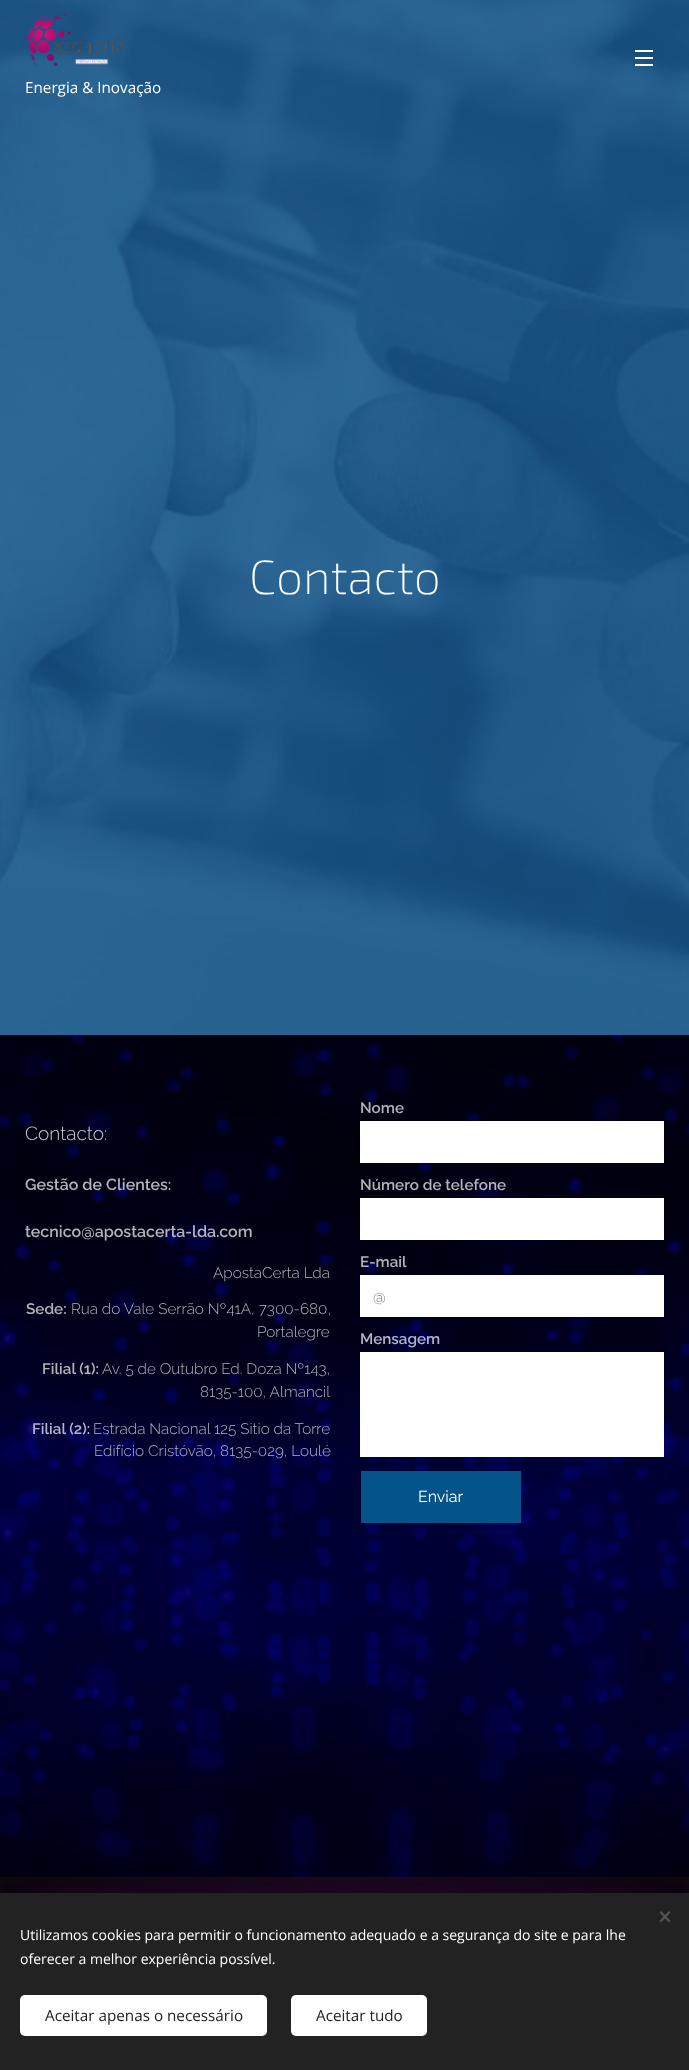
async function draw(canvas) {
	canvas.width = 689;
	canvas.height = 2070;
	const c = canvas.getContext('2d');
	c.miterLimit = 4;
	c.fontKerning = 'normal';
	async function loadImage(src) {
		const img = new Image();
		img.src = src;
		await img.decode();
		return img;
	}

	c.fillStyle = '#101010';
	c.fillRect(0, 0, 689, 2070);
	c.drawImage(await loadImage('img2.png'), 0, 0, 689, 1035);
	for (const [x, y, w, h, color] of [
		[635, 57, 18, 2, '#fff'],
		[635, 50, 18, 2, '#fff'],
		[635, 64, 18, 2, '#fff'],
	]) {
		c.fillStyle = color;
		c.fillRect(x, y, w, h);
	}
	c.drawImage(await loadImage('img1.png'), 27, 12, 97, 55);
	c.font = '15.25px Open Sans';
	c.fillText('Energia & Inovação', 25, 93);
	c.font = '200 48px "Exo 2"';
	c.fillText('Contacto', 249, 594);
	c.drawImage(await loadImage('img3.png'), 0, 1035, 689, 842);
	c.font = '300 19px Raleway';
	c.fillStyle = '#ccccd0';
	c.fillText('Contacto:', 25, 1140);
	c.font = '600 16px Raleway';
	c.fillStyle = '#b3b3b9';
	c.fillText('Gestão de Clientes:', 25, 1190);
	c.fillText('tecnico@apostacerta-lda.com', 25, 1237);
	c.font = '300 15.25px Raleway';
	c.fillText('ApostaCerta Lda', 213, 1278);
	c.font = '600 15.25px Raleway';
	c.fillText('Sede:', 26, 1314);
	c.font = '300 15.25px Raleway';
	c.fillText('Rua do Vale Serrão Nº41A, 7300-680,', 71, 1314);
	c.fillText('Portalegre', 257, 1337);
	c.font = '600 15.25px Raleway';
	c.fillText('Filial (1):', 42, 1374);
	c.font = '300 15.25px Raleway';
	c.fillText('Av. 5 de Outubro Ed. Doza Nº143,', 102, 1374);
	c.fillText('8135-100, Almancil', 200, 1397);
	c.font = '600 15.25px Raleway';
	c.fillStyle = '#b3b3c6';
	c.fillText('Filial (2):', 32, 1434);
	c.font = '300 15.25px Raleway';
	c.fillStyle = '#b3b3c0';
	c.fillText('Estrada Nacional 125 Sitio da Torre', 93, 1434);
	c.fillStyle = '#b3b3c6';
	c.fillText('Edifício Cristóvão, 8135-029, Loulé', 94, 1456);
	c.font = '600 15.25px Raleway';
	c.fillStyle = '#b3b3b9';
	c.fillText('Nome', 360, 1113);
	c.fillStyle = '#fff';
	c.fillRect(360, 1121, 304, 42);
	c.fillStyle = '#b3b3b9';
	c.fillText('Número de telefone', 360, 1190);
	c.fillStyle = '#fff';
	c.fillRect(360, 1198, 304, 42);
	c.fillStyle = '#b3b3b9';
	c.fillText('E-mail', 360, 1267);
	c.fillStyle = '#fff';
	c.fillRect(360, 1275, 304, 42);
	c.font = '15.25px Raleway';
	c.fillStyle = '#888';
	c.fillText('@', 373, 1302);
	c.font = '600 15.25px Raleway';
	c.fillStyle = '#b3b3c6';
	c.fillText('Mensagem', 360, 1344);
	c.fillStyle = '#fff';
	c.fillRect(360, 1352, 304, 105);
	c.fillStyle = '#045389';
	c.fillRect(361, 1471, 160, 52);
	c.font = '16px Raleway';
	c.fillStyle = '#fff';
	c.fillText('Enviar', 418, 1502);
	c.drawImage(await loadImage('img4.png'), 0, 1877, 689, 16);
	c.fillStyle = '#222';
	c.fillRect(0, 1893, 689, 177);
	c.fillStyle = '#555';
	c.beginPath();
	c.moveTo(659.5, 1921);
	c.lineTo(669, 1911);
	c.lineTo(670.5, 1912.5);
	c.lineTo(661, 1922.5);
	c.closePath();
	c.fill();
	c.beginPath();
	c.moveTo(661, 1911);
	c.lineTo(670.5, 1921);
	c.lineTo(669, 1922.5);
	c.lineTo(659.5, 1912.5);
	c.closePath();
	c.fill();
	c.font = '14px Open Sans';
	c.fillStyle = '#fff';
	c.fillText('Utilizamos cookies para permitir o funcionamento adequado e a segurança do site e para lhe', 20, 1940);
	c.fillText('oferecer a melhor experiência possível.', 20, 1964);
	c.beginPath();
	c.roundRect(20, 1995, 247, 41, 5);
	c.fill();
	c.font = '15.25px Open Sans';
	c.fillStyle = '#222';
	c.fillText('Aceitar apenas o necessário', 45, 2021);
	c.fillStyle = '#fff';
	c.beginPath();
	c.roundRect(291, 1995, 136, 41, 5);
	c.fill();
	c.fillStyle = '#222';
	c.fillText('Aceitar tudo', 316, 2021);
}

draw(document.querySelector('canvas'));
